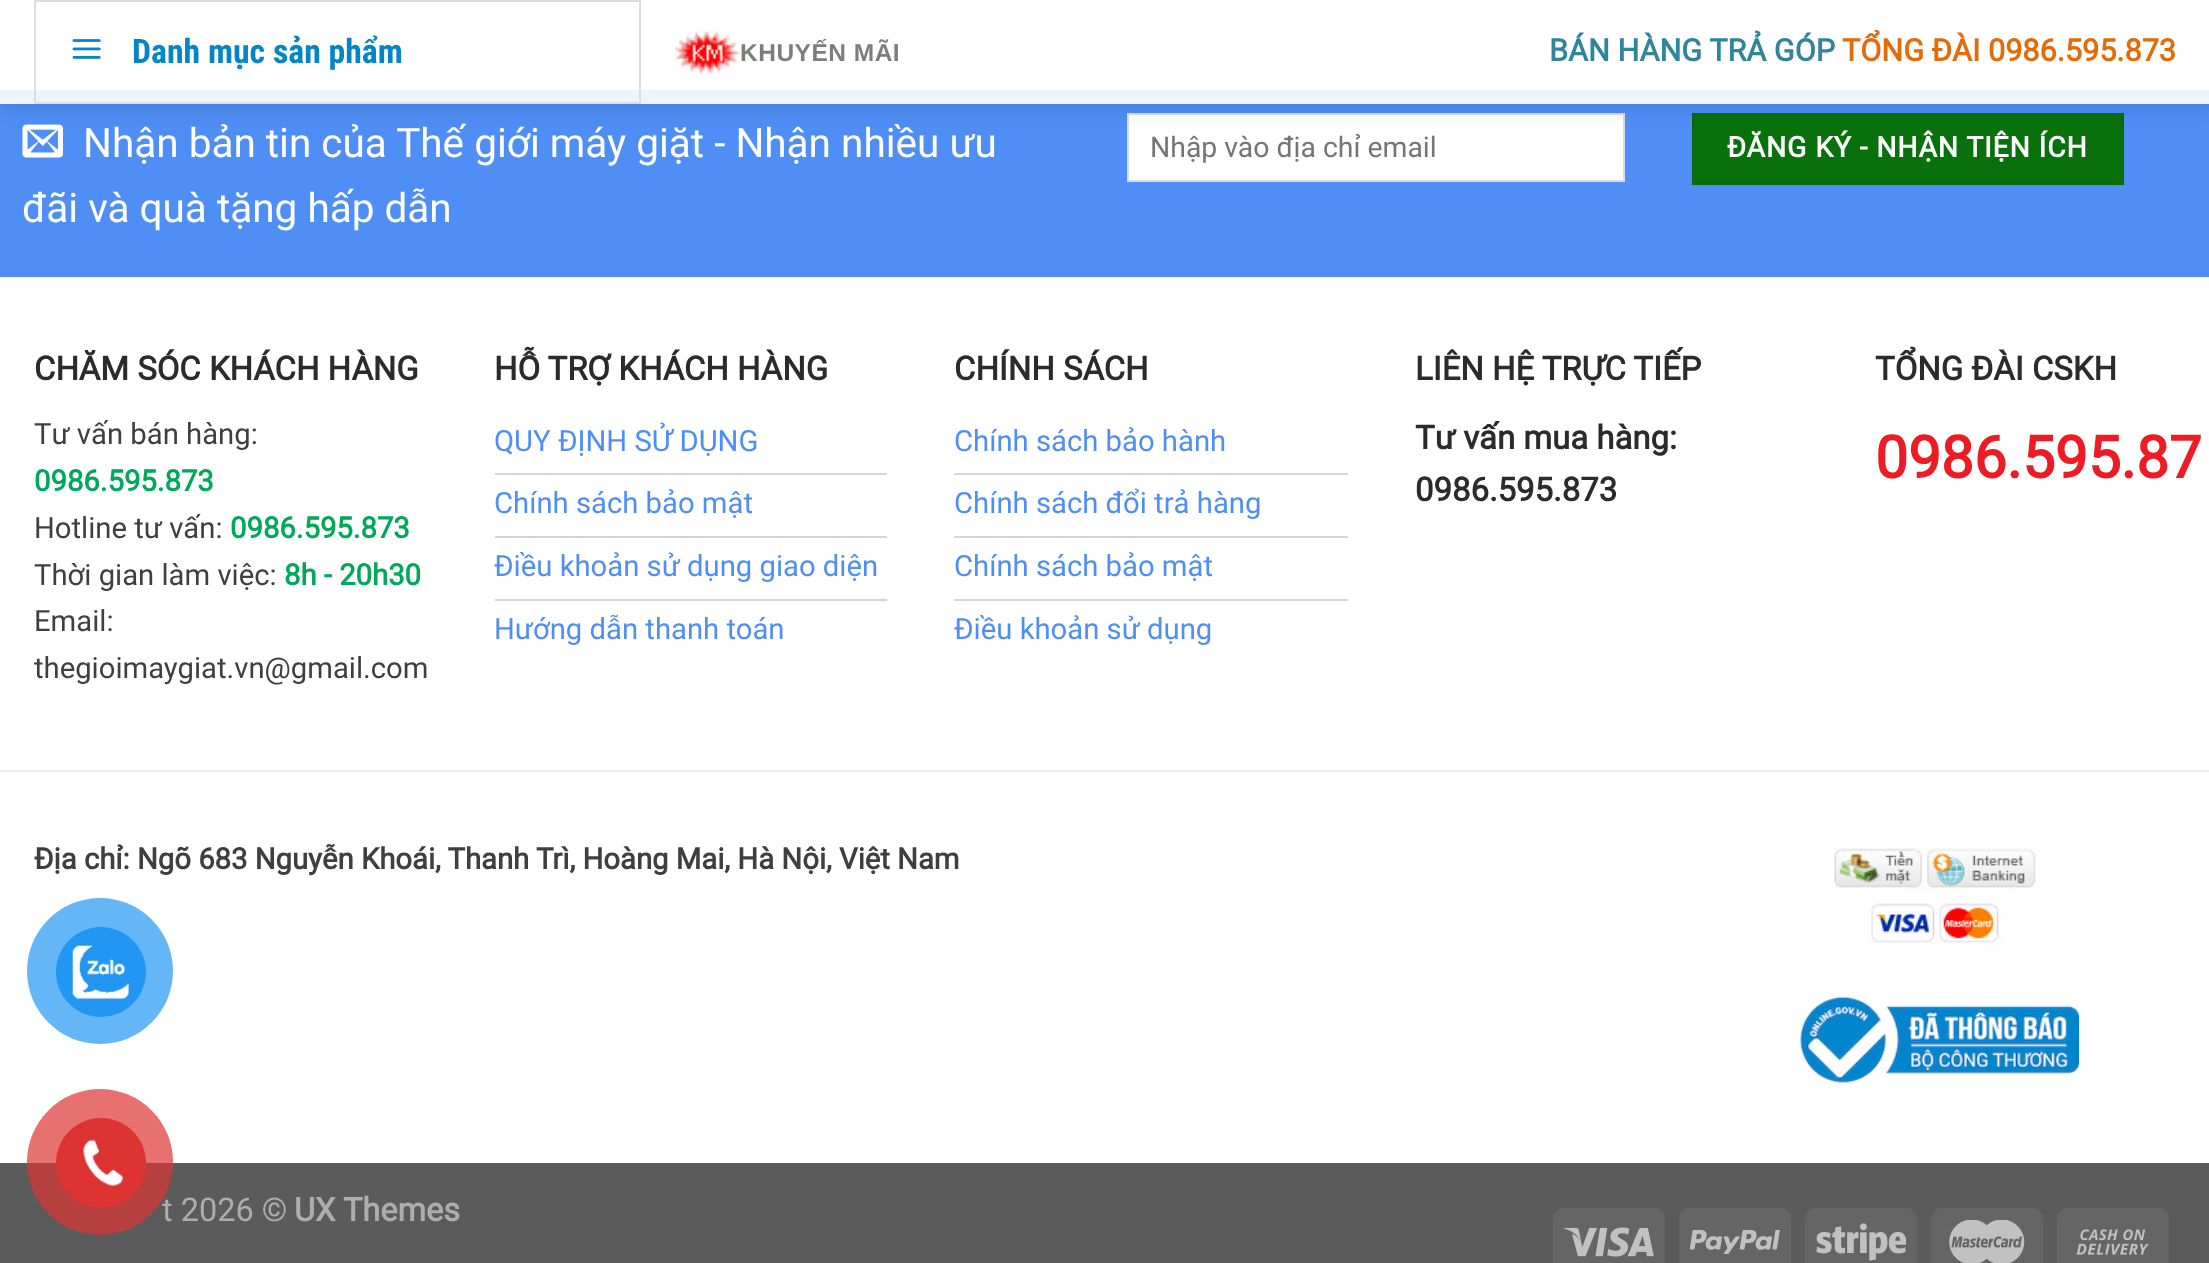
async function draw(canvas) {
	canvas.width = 2209;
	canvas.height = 1263;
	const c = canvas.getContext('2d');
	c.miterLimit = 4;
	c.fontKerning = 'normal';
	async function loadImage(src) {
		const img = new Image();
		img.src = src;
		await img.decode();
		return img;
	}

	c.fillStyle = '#fff';
	c.fillRect(0, 0, 2209, 1263);
	c.fillStyle = '#ececec';
	c.fillRect(1658, 0, 2, 23);
	c.fillStyle = '#4e8ef5';
	c.fillRect(0, 90, 2209, 187);
	c.drawImage(await loadImage('img3.png'), 22, 124, 41, 34);
	c.fillStyle = '#fff';
	c.beginPath();
	c.rect(1128, 114, 496, 67);
	c.fill();
	c.strokeStyle = '#ddd';
	c.lineWidth = 2;
	c.stroke();
	c.fillStyle = '#08710c';
	c.beginPath();
	c.rect(1693, 114, 430, 70);
	c.fill();
	c.strokeStyle = '#086b0b';
	c.stroke();
	c.save();
	c.beginPath();
	c.moveTo(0, 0);
	c.lineTo(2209, 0);
	c.lineTo(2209, 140);
	c.lineTo(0, 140);
	c.closePath();
	c.moveTo(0, 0);
	c.lineTo(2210, 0);
	c.lineTo(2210, 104);
	c.lineTo(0, 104);
	c.closePath();
	c.clip('evenodd');
	c.fillStyle = '#00000026';
	c.filter = 'blur(11px)';
	c.beginPath();
	c.rect(2, 2, 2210, 104);
	c.fill();
	c.filter = 'none';
	c.restore();
	c.fillStyle = '#ffffffe6';
	c.fillRect(0, 0, 2209, 104);
	c.strokeStyle = '#ddd';
	c.strokeRect(35, 1, 605, 102);
	c.drawImage(await loadImage('img1.png'), 72, 39, 29, 20);
	c.font = 'bold 33.75px Roboto Condensed';
	c.fillStyle = '#0485c6';
	c.fillText('Danh mục sản phẩm', 132, 63);
	c.drawImage(await loadImage('img2.png'), 675, 31, 66, 44);
	c.letterSpacing = '0.5px';
	c.font = 'bold 24.5px Liberation Sans';
	c.fillStyle = '#7d7d7d';
	c.fillText('KHUYẾN MÃI', 740, 61);
	c.letterSpacing = '0px';
	c.font = 'bold 30.6px Roboto';
	c.fillStyle = '#31859b';
	c.fillText('BÁN HÀNG TRẢ GÓP', 1549, 61);
	c.fillStyle = '#e36c09';
	c.fillText('TỔNG ĐÀI 0986.595.873', 1842, 61);
	c.font = '40.5px Roboto';
	c.fillStyle = '#fff';
	c.fillText('Nhận bản tin của Thế giới máy giặt - Nhận nhiều ưu', 83, 157);
	c.fillText('đãi và quà tặng hấp dẫn', 22, 222);
	c.font = '28.4px Roboto';
	c.fillStyle = '#757575';
	c.fillText('Nhập vào địa chỉ email', 1150, 157);
	c.letterSpacing = '0.85px';
	c.font = 'bold 28.4px Roboto';
	c.fillStyle = '#fff';
	c.fillText('ĐĂNG KÝ - NHẬN TIỆN ÍCH', 1727, 157);
	c.letterSpacing = '0px';
	c.font = 'bold 32.9px Roboto';
	c.fillStyle = '#2b2b2b';
	c.fillText('CHĂM SÓC KHÁCH HÀNG', 34, 380);
	c.font = '29.25px Roboto';
	c.fillStyle = '#3f3f3f';
	c.fillText('Tư vấn bán hàng:', 34, 444);
	c.font = 'bold 29.25px Roboto';
	c.fillStyle = '#00a859';
	c.fillText('0986.595.873', 34, 491);
	c.font = '29.25px Roboto';
	c.fillStyle = '#3f3f3f';
	c.fillText('Hotline tư vấn:', 34, 538);
	c.font = 'bold 29.25px Roboto';
	c.fillStyle = '#00a859';
	c.fillText('0986.595.873', 230, 538);
	c.font = '29.25px Roboto';
	c.fillStyle = '#3f3f3f';
	c.fillText('Thời gian làm việc:', 34, 585);
	c.font = 'bold 29.25px Roboto';
	c.fillStyle = '#00a859';
	c.fillText('8h - 20h30', 284, 585);
	c.font = '29.25px Roboto';
	c.fillStyle = '#3f3f3f';
	c.fillText('Email:', 34, 631);
	c.fillText('thegioimaygiat.vn@gmail.com', 34, 678);
	c.font = 'bold 32.9px Roboto';
	c.fillStyle = '#2b2b2b';
	c.fillText('HỖ TRỢ KHÁCH HÀNG', 494, 380);
	c.fillStyle = '#d6d6d6';
	c.fillRect(495, 473, 392, 2);
	c.font = '29.25px Roboto';
	c.fillStyle = '#4e8ef5';
	c.fillText('QUY ĐỊNH SỬ DỤNG', 494, 451);
	c.fillStyle = '#d6d6d6';
	c.fillRect(495, 536, 392, 2);
	c.fillStyle = '#4e8ef5';
	c.fillText('Chính sách bảo mật', 494, 513);
	c.fillStyle = '#d6d6d6';
	c.fillRect(495, 599, 392, 2);
	c.fillStyle = '#4e8ef5';
	c.fillText('Điều khoản sử dụng giao diện', 494, 576);
	c.fillText('Hướng dẫn thanh toán', 494, 639);
	c.font = 'bold 32.9px Roboto';
	c.fillStyle = '#2b2b2b';
	c.fillText('CHÍNH SÁCH', 954, 380);
	c.fillStyle = '#d6d6d6';
	c.fillRect(954, 473, 394, 2);
	c.font = '29.25px Roboto';
	c.fillStyle = '#4e8ef5';
	c.fillText('Chính sách bảo hành', 954, 451);
	c.fillStyle = '#d6d6d6';
	c.fillRect(954, 536, 394, 2);
	c.fillStyle = '#4e8ef5';
	c.fillText('Chính sách đổi trả hàng', 954, 513);
	c.fillStyle = '#d6d6d6';
	c.fillRect(954, 599, 394, 2);
	c.fillStyle = '#4e8ef5';
	c.fillText('Chính sách bảo mật', 954, 576);
	c.fillText('Điều khoản sử dụng', 954, 639);
	c.font = 'bold 32.9px Roboto';
	c.fillStyle = '#2b2b2b';
	for (const [text, x, y] of [
		['LIÊN HỆ TRỰC TIẾP', 1415, 380],
		['Tư vấn mua hàng:', 1415, 449],
		['0986.595.873', 1415, 501],
		['TỔNG ĐÀI CSKH', 1875, 380],
	]) {
		c.fillText(text, x, y);
	}
	c.font = 'bold 58.5px Roboto';
	c.fillStyle = '#ed1c24';
	c.fillText('0986.595.87', 1875, 478);
	c.fillStyle = '#ececec';
	c.fillRect(0, 770, 2209, 2);
	c.font = 'bold 29.25px Roboto';
	c.fillStyle = '#3f3f3f';
	c.fillText('Địa chỉ: Ngõ 683 Nguyễn Khoái, Thanh Trì, Hoàng Mai, Hà Nội, Việt Nam', 34, 869);
	c.drawImage(await loadImage('img4.png'), 1834, 847, 205, 99);
	c.drawImage(await loadImage('img5.png'), 1800, 996, 279, 87);
	c.fillStyle = '#5b5b5b';
	c.fillRect(0, 1163, 2209, 100);
	c.font = '32.5px Roboto';
	c.fillStyle = '#adadad';
	c.fillText('t 2026 ©', 162, 1221);
	c.font = 'bold 32.5px Roboto';
	c.fillText('UX Themes', 294, 1221);
	c.fillStyle = '#656565';
	c.beginPath();
	c.roundRect(1553, 1208, 112, 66, 11);
	c.fill();
	c.drawImage(await loadImage('img6.png'), 1564, 1227, 90, 30);
	c.beginPath();
	c.roundRect(1679, 1208, 112, 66, 11);
	c.fill();
	c.drawImage(await loadImage('img7.png'), 1690, 1230, 90, 24);
	c.beginPath();
	c.roundRect(1805, 1208, 112, 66, 11);
	c.fill();
	c.drawImage(await loadImage('img8.png'), 1816, 1223, 90, 38);
	c.beginPath();
	c.roundRect(1931, 1208, 112, 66, 11);
	c.fill();
	c.drawImage(await loadImage('img9.png'), 1949, 1220, 76, 43);
	c.beginPath();
	c.roundRect(2057, 1208, 112, 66, 11);
	c.fill();
	c.drawImage(await loadImage('img10.png'), 2076, 1229, 73, 26);
	c.fillStyle = '#64b6f7';
	c.beginPath();
	c.arc(100, 971, 73, 0, 2 * Math.PI);
	c.fill();
	c.fillStyle = '#2196f3';
	c.beginPath();
	c.arc(101, 972, 45, 0, 2 * Math.PI);
	c.fill();
	c.drawImage(await loadImage('img11.png'), 72, 945, 57, 54);
	c.fillStyle = '#dd3333b3';
	c.beginPath();
	c.arc(100, 1162, 73, 0, 2 * Math.PI);
	c.fill();
	c.fillStyle = '#d33';
	c.beginPath();
	c.arc(101, 1163, 45, 0, 2 * Math.PI);
	c.fill();
	c.drawImage(await loadImage('img12.png'), 83, 1139, 40, 47);
}

draw(document.querySelector('canvas'));
